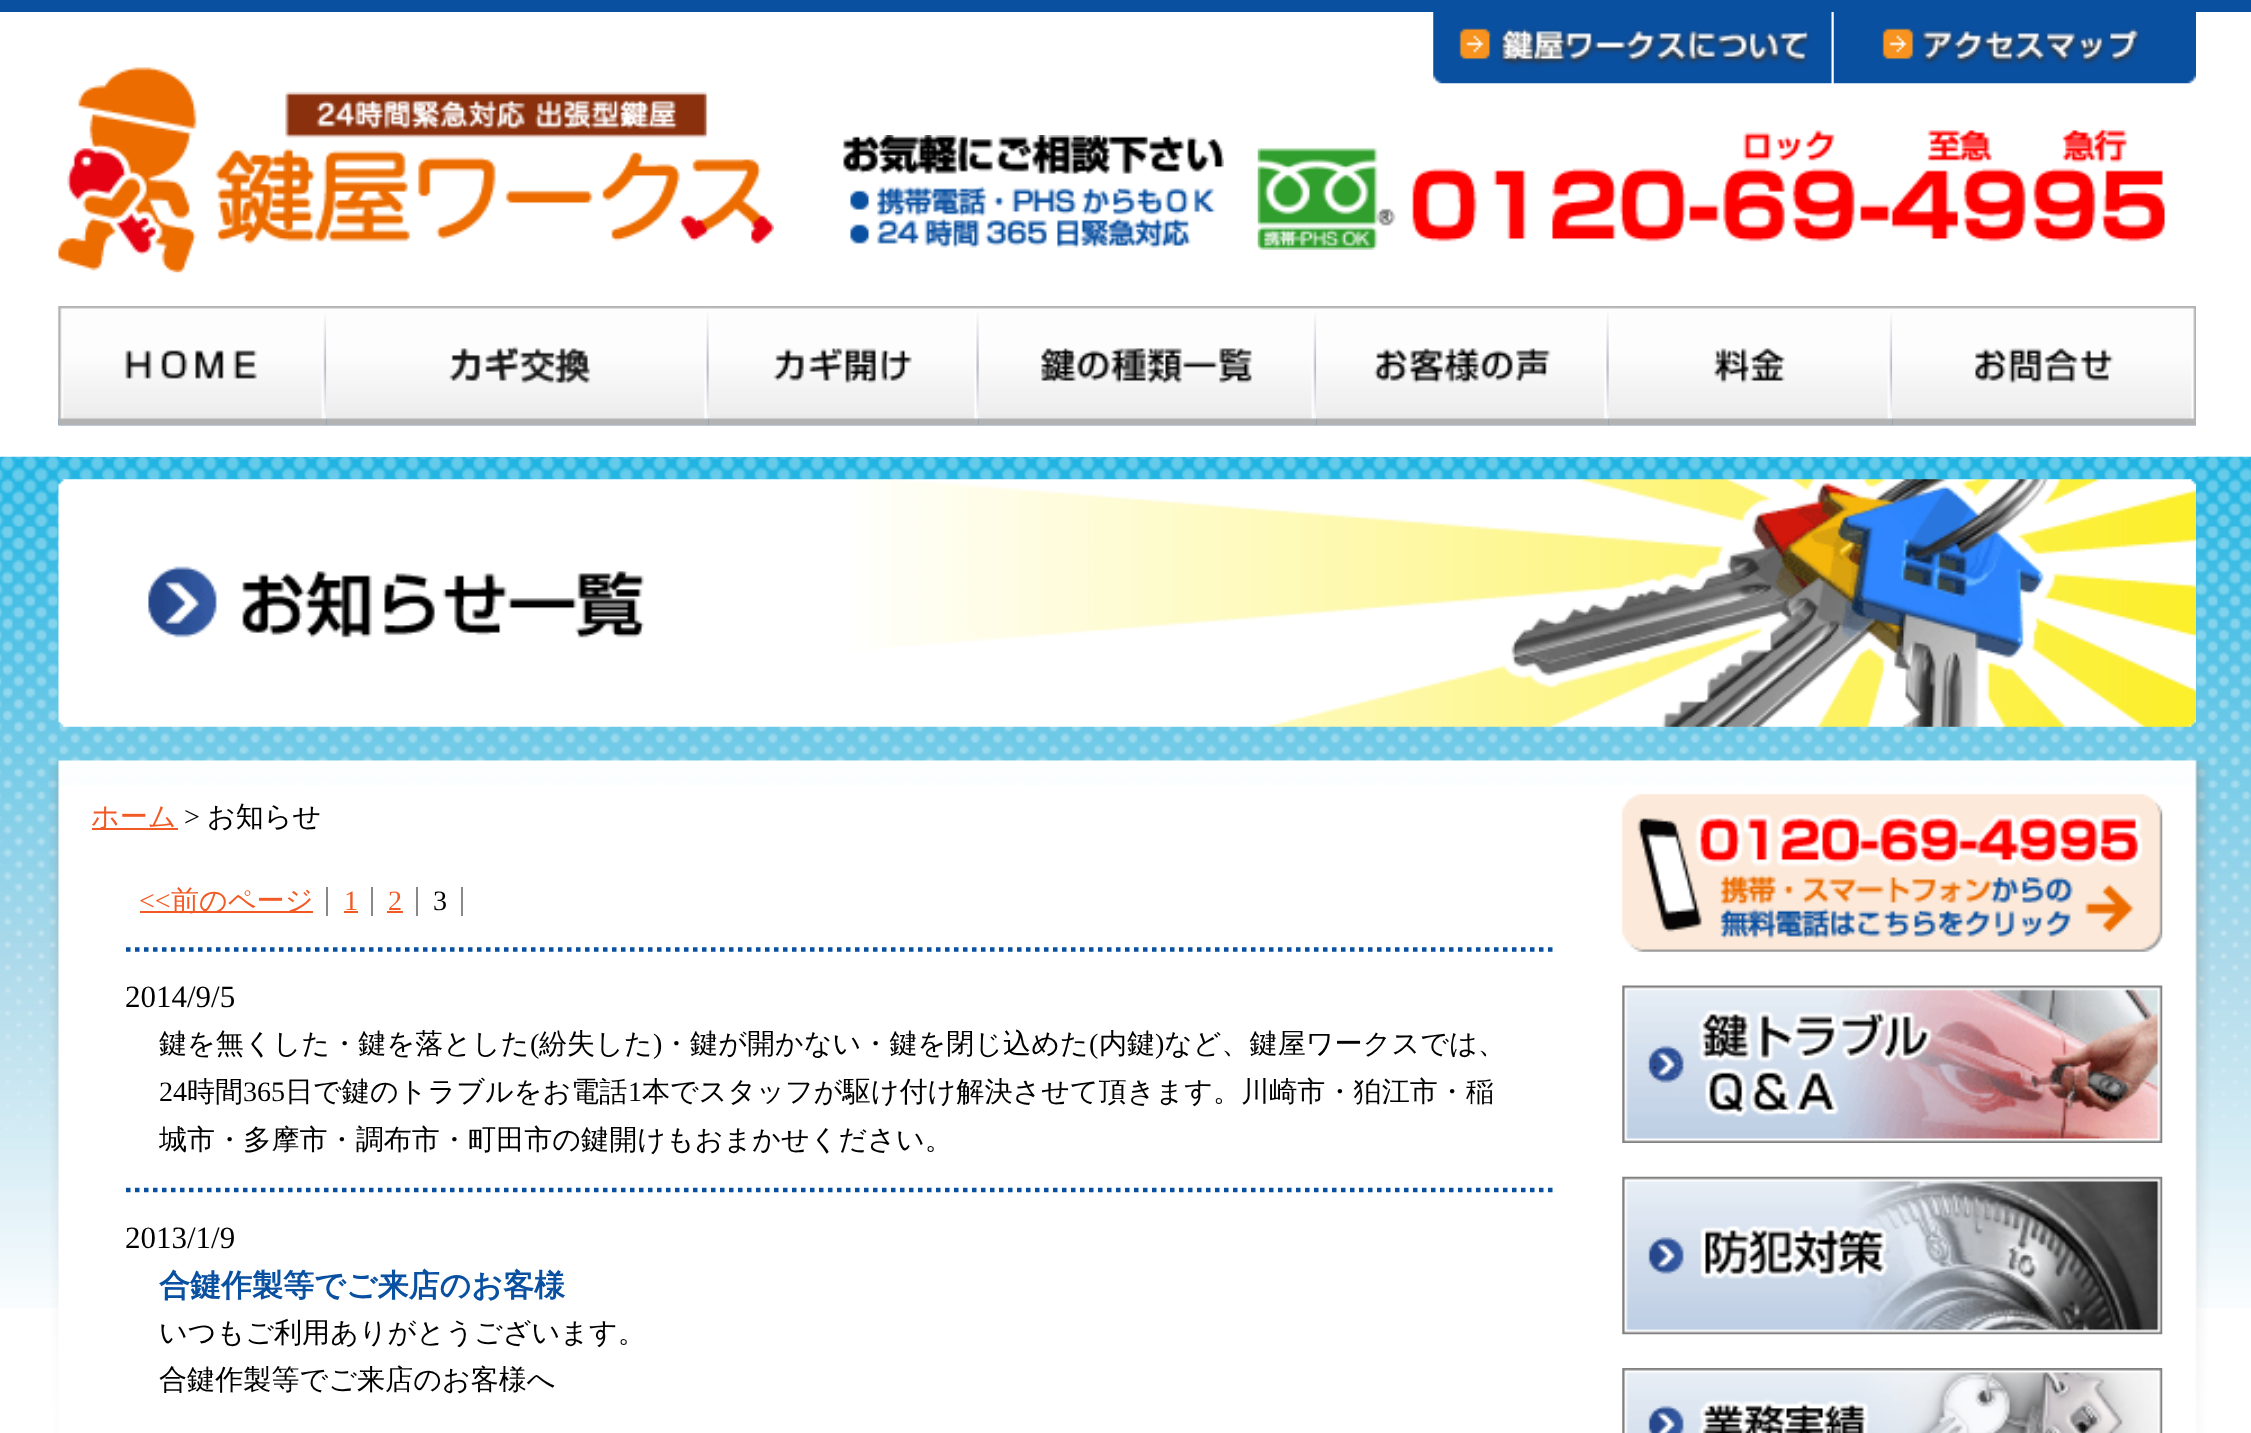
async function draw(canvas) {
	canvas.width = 2251;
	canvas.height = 1433;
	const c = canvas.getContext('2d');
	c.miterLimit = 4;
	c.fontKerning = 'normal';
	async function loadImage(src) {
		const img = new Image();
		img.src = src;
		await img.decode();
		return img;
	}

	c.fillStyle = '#fff';
	c.fillRect(0, 0, 2251, 1433);
	c.fillStyle = '#0a50a1';
	c.fillRect(0, 0, 2251, 12);
	c.drawImage(await loadImage('img21.png'), 0, 456, 2251, 852);
	c.fillStyle = '#fff';
	c.fillRect(59, 456, 2137, 1);
	c.drawImage(await loadImage('img1.png'), 1433, 12, 399, 72);
	c.drawImage(await loadImage('img2.png'), 1833, 12, 363, 72);
	c.drawImage(await loadImage('img3.png'), 58, 67, 716, 206);
	c.drawImage(await loadImage('img4.png'), 843, 135, 381, 113);
	c.drawImage(await loadImage('img5.png'), 1257, 128, 908, 122);
	c.drawImage(await loadImage('img6.png'), 58, 306, 269, 120);
	c.drawImage(await loadImage('img8.png'), 326, 306, 383, 120);
	c.drawImage(await loadImage('img7.png'), 58, 306, 269, 120);
	c.drawImage(await loadImage('img10.png'), 708, 306, 271, 120);
	c.drawImage(await loadImage('img9.png'), 326, 306, 383, 120);
	c.drawImage(await loadImage('img12.png'), 978, 306, 339, 120);
	c.drawImage(await loadImage('img11.png'), 708, 306, 271, 120);
	c.drawImage(await loadImage('img14.png'), 1316, 306, 293, 120);
	c.drawImage(await loadImage('img13.png'), 978, 310, 339, 116);
	c.drawImage(await loadImage('img16.png'), 1608, 306, 285, 120);
	c.drawImage(await loadImage('img15.png'), 1316, 306, 293, 120);
	c.drawImage(await loadImage('img18.png'), 1892, 306, 304, 120);
	c.drawImage(await loadImage('img17.png'), 1608, 310, 285, 116);
	c.drawImage(await loadImage('img19.png'), 1892, 306, 304, 120);
	c.drawImage(await loadImage('img20.png'), 58, 479, 2138, 248);
	c.drawImage(await loadImage('img22.png'), 50, 760, 2159, 673);
	c.fillStyle = '#f15a24';
	c.fillRect(92, 828, 86, 2);
	c.font = '500 28.1px WenQuanYi Zen Hei';
	c.fillText('ホーム', 91, 826);
	c.font = '28.1px Liberation Serif';
	c.fillStyle = '#000';
	c.fillText('>', 184, 826);
	c.font = '500 28.1px WenQuanYi Zen Hei';
	c.fillText('お知らせ', 207, 826);
	c.fillStyle = '#888';
	c.fillRect(326, 887, 2, 29);
	c.font = '28.1px Liberation Serif';
	c.fillStyle = '#f15a24';
	c.fillText('<<', 139, 910);
	c.fillRect(140, 911, 173, 2);
	c.font = '500 28.1px WenQuanYi Zen Hei';
	c.fillText('前のページ', 171, 910);
	c.fillStyle = '#888';
	c.fillRect(371, 887, 2, 29);
	c.font = '28.1px Liberation Serif';
	c.fillStyle = '#f15a24';
	c.fillText('1', 344, 910);
	c.fillRect(344, 911, 14, 2);
	c.fillStyle = '#888';
	c.fillRect(416, 887, 2, 29);
	c.fillStyle = '#f15a24';
	c.fillText('2', 388, 910);
	c.fillRect(387, 911, 16, 2);
	c.fillStyle = '#888';
	c.fillRect(461, 887, 2, 29);
	c.fillStyle = '#000';
	c.fillText('3', 433, 910);
	c.beginPath();
	c.moveTo(126, 949.5);
	c.lineTo(1555, 949.5);
	c.strokeStyle = '#0a50a1';
	c.lineWidth = 4.5;
	c.setLineDash([4.5, 4.5]);
	c.stroke();
	c.font = '31px Liberation Serif';
	c.fillText('2014/9/5', 125, 1007);
	c.beginPath();
	c.moveTo(126, 1190);
	c.lineTo(1555, 1190);
	c.stroke();
	c.font = '500 28.1px WenQuanYi Zen Hei';
	c.fillText('鍵を無くした・鍵を落とした', 159, 1053);
	c.font = '28.1px Liberation Serif';
	c.fillText('(', 530, 1053);
	c.font = '500 28.1px WenQuanYi Zen Hei';
	c.fillText('紛失した', 539, 1053);
	c.font = '28.1px Liberation Serif';
	c.fillText(')', 653, 1053);
	c.font = '500 28.1px WenQuanYi Zen Hei';
	c.fillText('・鍵が開かない・鍵を閉じ込めた', 662, 1053);
	c.font = '28.1px Liberation Serif';
	c.fillText('(', 1089, 1053);
	c.font = '500 28.1px WenQuanYi Zen Hei';
	c.fillText('内鍵', 1099, 1053);
	c.font = '28.1px Liberation Serif';
	c.fillText(')', 1155, 1053);
	c.font = '500 28.1px WenQuanYi Zen Hei';
	c.fillText('など、鍵屋ワークスでは、', 1164, 1053);
	c.font = '28.1px Liberation Serif';
	c.fillText('24', 159, 1101);
	c.font = '500 28.1px WenQuanYi Zen Hei';
	c.fillText('時間', 187, 1101);
	c.font = '28.1px Liberation Serif';
	c.fillText('365', 243, 1101);
	c.font = '500 28.1px WenQuanYi Zen Hei';
	c.fillText('日で鍵のトラブルをお電話', 285, 1101);
	c.font = '28.1px Liberation Serif';
	c.fillText('1', 628, 1101);
	c.font = '500 28.1px WenQuanYi Zen Hei';
	c.fillText('本でスタッフが駆け付け解決させて頂きます。川崎市・狛江市・稲', 642, 1101);
	c.fillText('城市・多摩市・調布市・町田市の鍵開けもおまかせください。', 159, 1149);
	c.font = '31px Liberation Serif';
	c.fillText('2013/1/9', 125, 1248);
	c.font = 'bold 31px WenQuanYi Zen Hei';
	c.fillStyle = '#0a50a1';
	c.fillText('合鍵作製等でご来店のお客様', 159, 1296);
	c.font = '500 28.1px WenQuanYi Zen Hei';
	c.fillStyle = '#000';
	c.fillText('いつもご利用ありがとうございます。', 159, 1342);
	c.fillText('合鍵作製等でご来店のお客様へ', 159, 1389);
	c.drawImage(await loadImage('img23.png'), 1622, 794, 541, 158);
	c.drawImage(await loadImage('img24.png'), 1622, 985, 541, 158);
	c.drawImage(await loadImage('img25.png'), 1622, 1176, 541, 159);
	c.drawImage(await loadImage('img26.png'), 1622, 1368, 541, 65);
}

draw(document.querySelector('canvas'));
